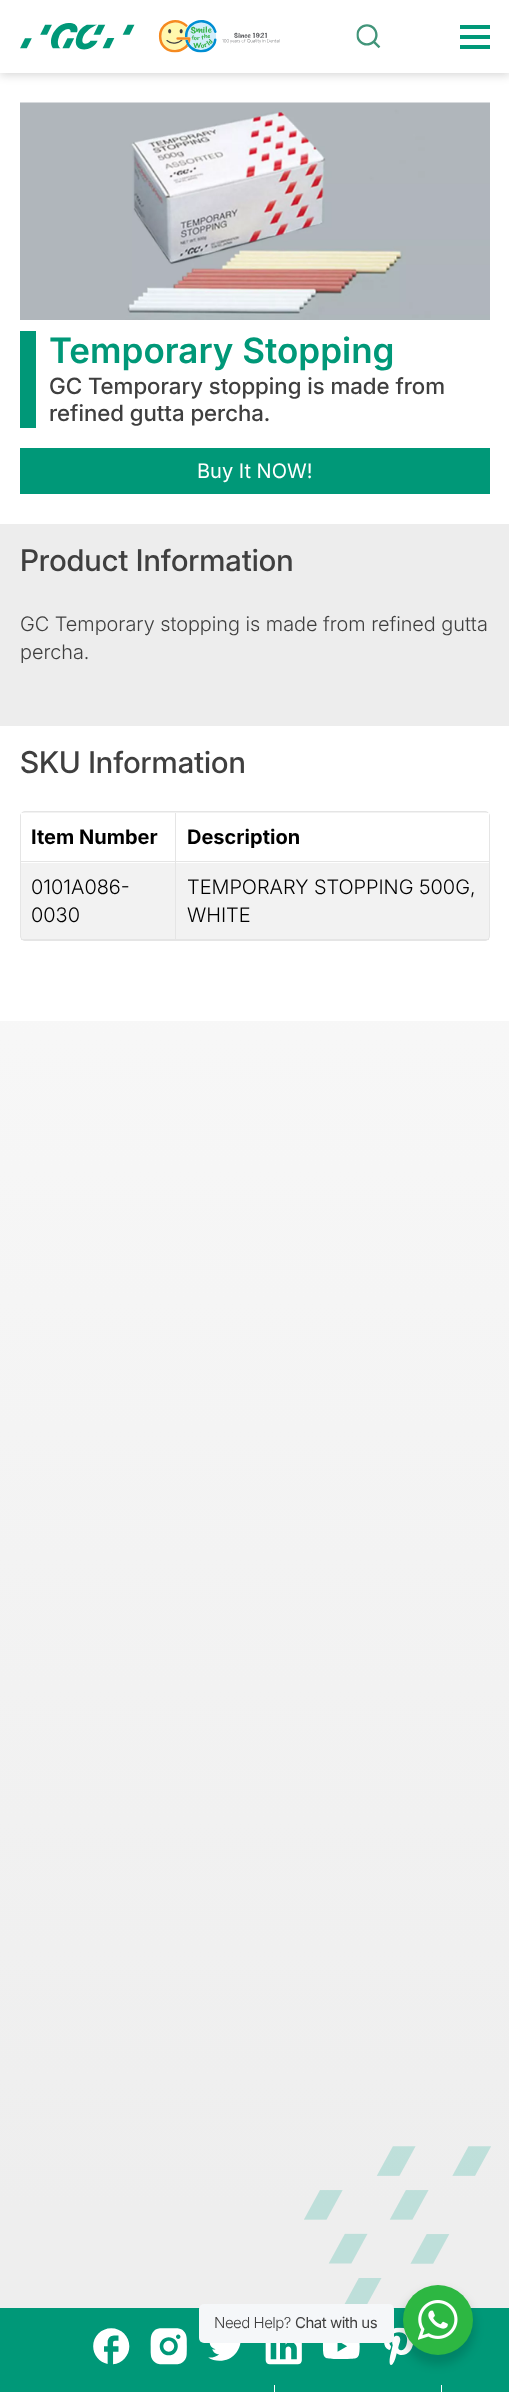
async function draw(canvas) {
	canvas.width = 509;
	canvas.height = 2392;
	const c = canvas.getContext('2d');
	c.miterLimit = 4;
	c.fontKerning = 'normal';
	async function loadImage(src) {
		const img = new Image();
		img.src = src;
		await img.decode();
		return img;
	}
	let gradient;

	c.fillStyle = '#fff';
	c.fillRect(0, 0, 509, 2392);
	gradient = c.createLinearGradient(255, 0, 255, 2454);
	gradient.addColorStop(0, '#fff');
	gradient.addColorStop(0.9, '#eee');
	c.fillStyle = gradient;
	c.fillRect(0, 325, 509, 1983);
	c.fillStyle = '#00000029';
	c.filter = 'blur(5px)';
	c.beginPath();
	c.rect(0, 3, 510, 72);
	c.fill();
	c.filter = 'none';
	c.fillStyle = '#fff';
	c.fillRect(0, 0, 509, 73);
	c.drawImage(await loadImage('img1.png'), 20, 20, 260, 33);
	c.drawImage(await loadImage('img2.png'), 356, 24, 25, 25);
	for (const [x, y, w, h, color] of [
		[460, 35, 30, 4, '#009878'],
		[460, 25, 30, 4, '#009878'],
		[460, 45, 30, 4, '#009878'],
	]) {
		c.fillStyle = color;
		c.fillRect(x, y, w, h);
	}
	c.drawImage(await loadImage('img3.png'), 304, 2146, 187, 158);
	c.fillStyle = '#fff';
	c.fillRect(0, 325, 509, 199);
	c.drawImage(await loadImage('img4.png'), 20, 102, 470, 218);
	c.fillStyle = '#009878';
	c.fillRect(20, 331, 16, 97);
	c.font = '600 35px Inter';
	c.fillText('Temporary Stopping', 49, 363);
	c.font = '500 22.5px Inter';
	c.fillStyle = '#3f3f3f';
	c.fillText('GC Temporary stopping is made from', 49, 394);
	c.fillText('refined gutta percha.', 49, 421);
	c.fillStyle = '#009878';
	c.fillRect(20, 448, 470, 46);
	c.font = '20px Inter';
	c.fillStyle = '#fff';
	c.fillText('Buy It NOW!', 197, 478);
	c.fillStyle = '#ededed';
	c.fillRect(0, 524, 509, 202);
	c.font = '500 30px "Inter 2"';
	c.fillStyle = '#3f3f3f';
	c.fillText('Product Information', 20, 571);
	c.font = '300 20px Inter';
	c.fillText('GC Temporary stopping is made from refined gutta', 20, 631);
	c.fillText('percha.', 20, 659);
	c.fillStyle = '#fff';
	c.fillRect(0, 726, 509, 295);
	c.font = '500 30px "Inter 2"';
	c.fillStyle = '#3f3f3f';
	c.fillText('SKU Information', 20, 773);
	c.fillStyle = '#f2f2f2';
	c.beginPath();
	c.roundRect(20.5, 811.5, 469, 129, 4.5);
	c.fill();
	c.strokeStyle = '#e5e5e5';
	c.stroke();
	for (const [x, y, w, h, color] of [
		[21, 813, 468, 50, '#fff'],
		[175, 813, 1, 127, '#e5e5e5'],
		[21, 861, 468, 1, '#e5e5e5'],
	]) {
		c.fillStyle = color;
		c.fillRect(x, y, w, h);
	}
	c.font = 'bold 20px Inter';
	c.fillStyle = '#000';
	c.fillText('Item Number', 31, 844);
	c.fillText('Description', 187, 844);
	c.fillStyle = '#e5e5e5';
	c.fillRect(21, 939, 468, 1);
	c.font = '300 20px Inter';
	c.fillStyle = '#000';
	for (const [text, x, y] of [
		['0101A086-', 31, 894],
		['0030', 31, 922],
		['TEMPORARY STOPPING 500G,', 187, 894],
		['WHITE', 187, 922],
	]) {
		c.fillText(text, x, y);
	}
	c.fillStyle = '#009878';
	c.fillRect(0, 2308, 509, 84);
	c.drawImage(await loadImage('img5.png'), 93, 2328, 37, 37);
	c.drawImage(await loadImage('img6.png'), 150, 2328, 37, 37);
	c.drawImage(await loadImage('img7.png'), 208, 2343, 33, 18);
	c.drawImage(await loadImage('img8.png'), 265, 2343, 37, 22);
	c.drawImage(await loadImage('img9.png'), 322, 2343, 38, 16);
	c.drawImage(await loadImage('img10.png'), 384, 2327, 29, 38);
	c.fillStyle = '#fff';
	c.fillRect(274, 2385, 1, 7);
	c.fillRect(441, 2385, 1, 7);
	c.fillStyle = '#00000024';
	c.filter = 'blur(5px)';
	c.beginPath();
	c.roundRect(400, 2290, 75, 75, 37.5);
	c.fill();
	c.filter = 'none';
	c.fillStyle = '#f5f7f9';
	c.beginPath();
	c.roundRect(199, 2304, 195, 39, 5);
	c.fill();
	c.letterSpacing = '-0.5px';
	c.font = '300 15px "Inter 2"';
	c.fillStyle = '#3f3f3f';
	c.fillText('Need Help?', 214, 2328);
	c.font = '15px Inter';
	c.fillText('Chat with us', 295, 2328);
	c.fillStyle = '#2db742';
	c.beginPath();
	c.arc(438, 2320, 35, 0, 2 * Math.PI);
	c.fill();
	c.drawImage(await loadImage('img11.png'), 418, 2300, 40, 40);
}

draw(document.querySelector('canvas'));
